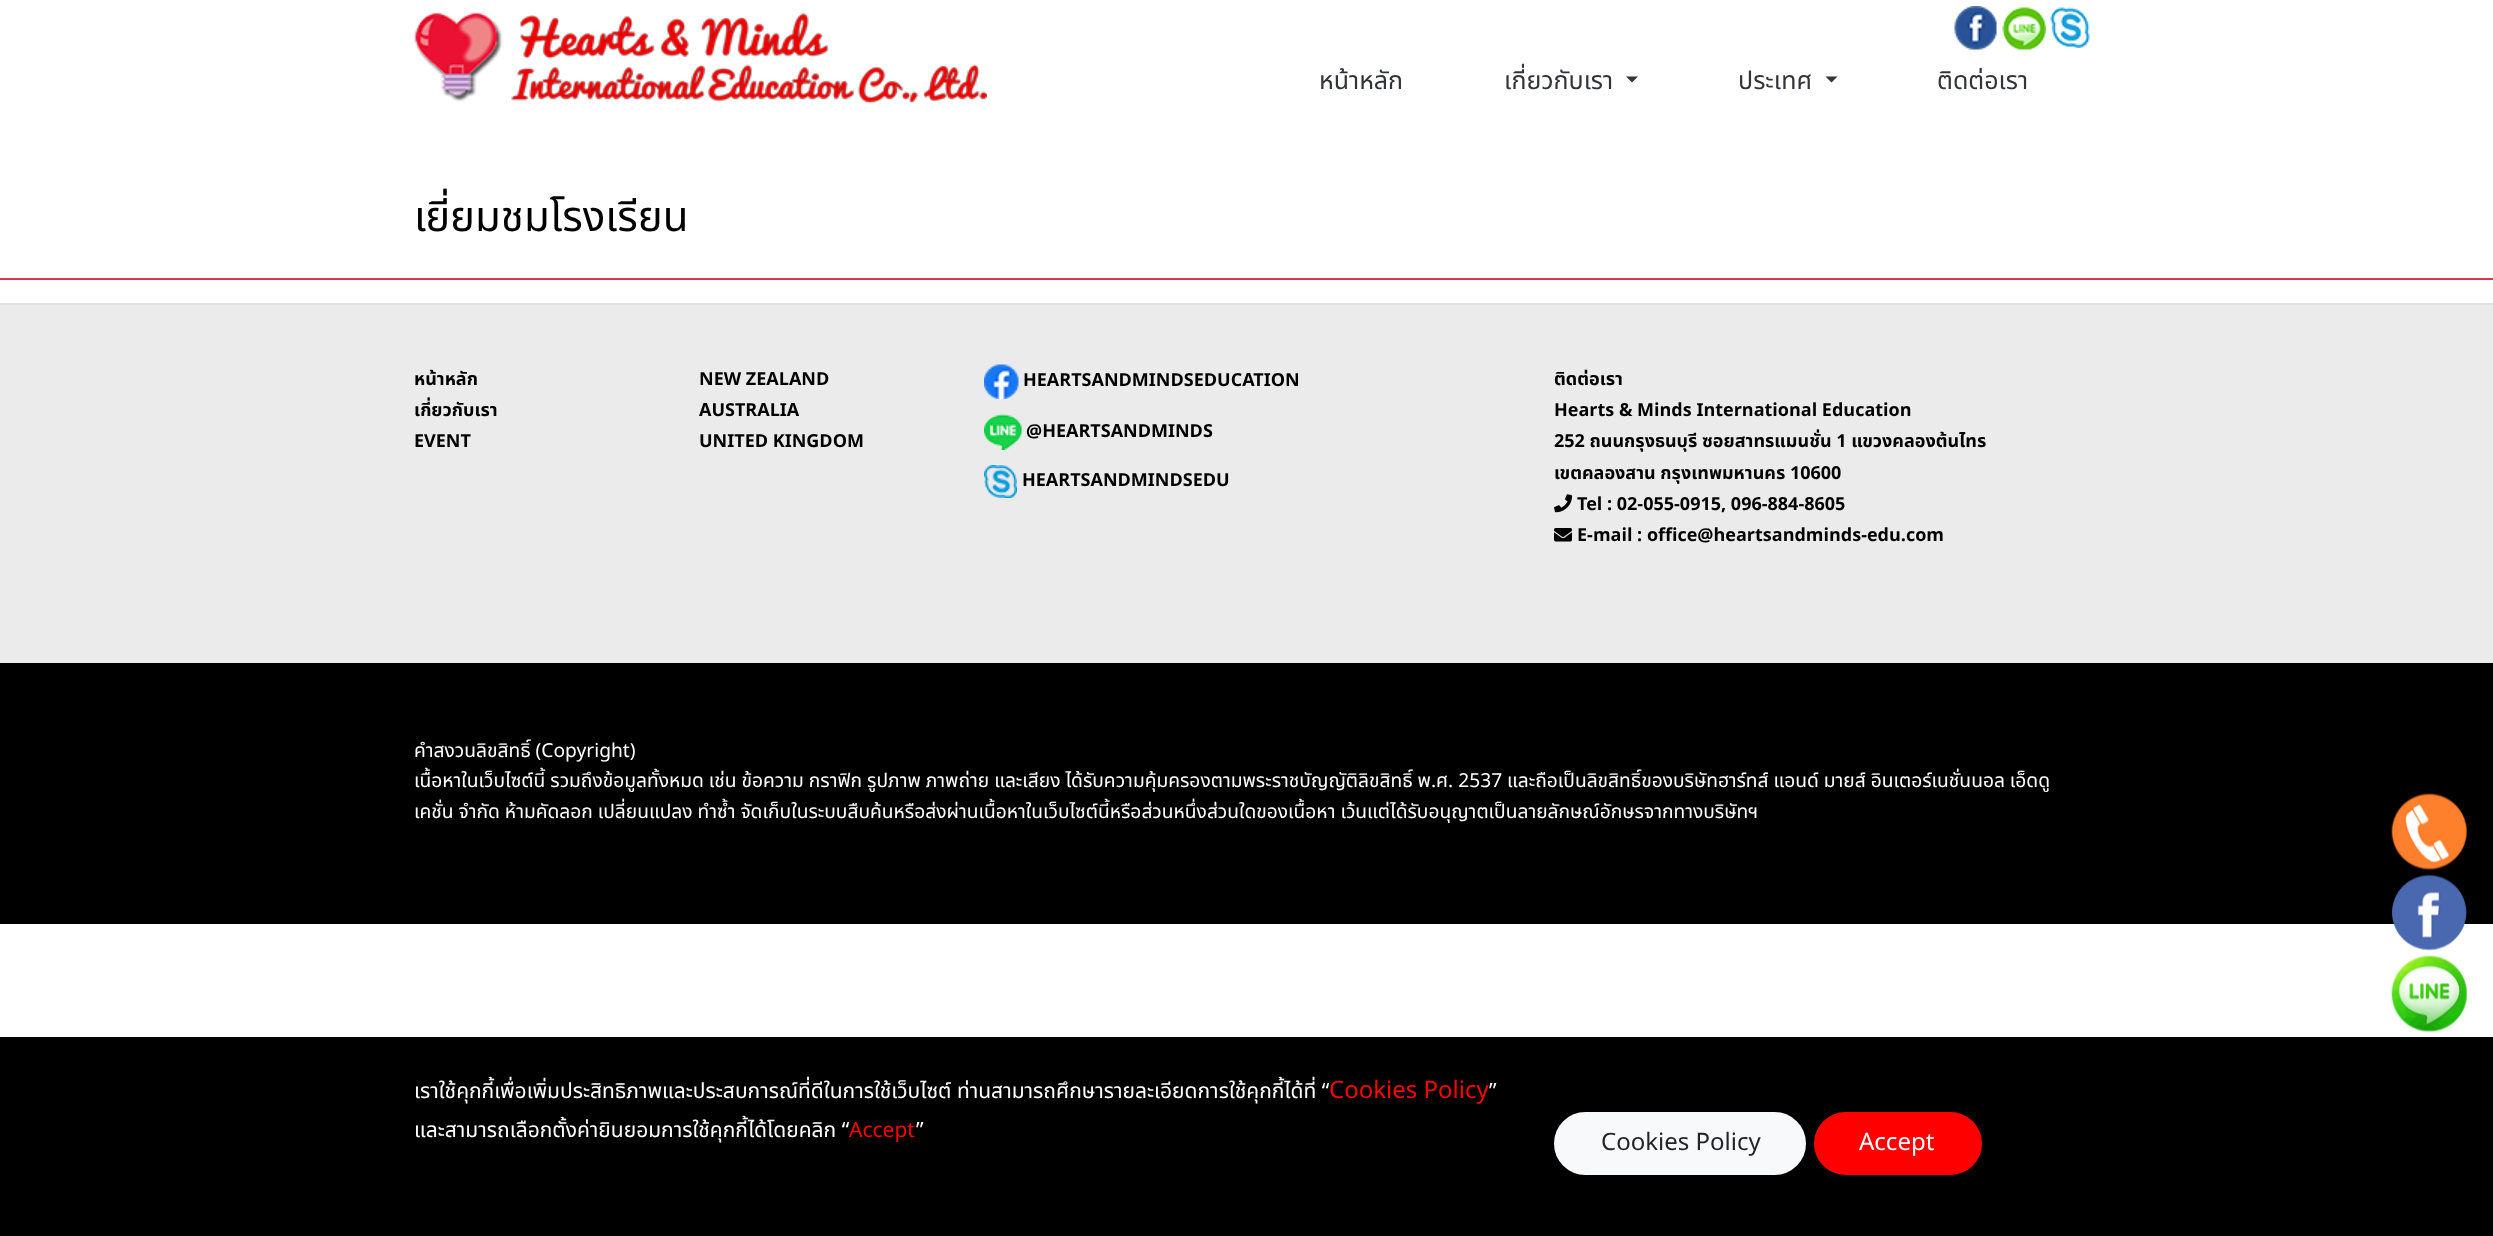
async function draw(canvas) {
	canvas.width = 2493;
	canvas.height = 1236;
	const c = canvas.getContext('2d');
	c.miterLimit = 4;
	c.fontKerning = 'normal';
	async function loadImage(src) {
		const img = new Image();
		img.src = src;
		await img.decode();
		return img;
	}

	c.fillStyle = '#fff';
	c.fillRect(0, 0, 2493, 1236);
	c.drawImage(await loadImage('img1.png'), 414, 12, 573, 92);
	c.drawImage(await loadImage('img2.png'), 1954, 6, 43, 44);
	c.drawImage(await loadImage('img3.png'), 2002, 7, 44, 43);
	c.drawImage(await loadImage('img4.png'), 2050, 7, 40, 41);
	c.font = '25px Noto Sans Thai';
	c.fillStyle = '#333439';
	c.fillText('หน้าหลัก', 1319, 89);
	c.fillText('เกี่ยวกับเรา', 1504, 89);
	c.beginPath();
	c.moveTo(1626, 76.5);
	c.lineTo(1638, 76.5);
	c.lineTo(1632, 82.5);
	c.closePath();
	c.fill();
	c.fillText('ประเทศ', 1738, 89);
	c.beginPath();
	c.moveTo(1825.5, 76.5);
	c.lineTo(1837.5, 76.5);
	c.lineTo(1831.5, 82.5);
	c.closePath();
	c.fill();
	c.fillText('ติดต่อเรา', 1937, 89);
	c.font = '42px Noto Sans Thai';
	c.fillStyle = '#010101';
	c.fillText('เยี่ยมชมโรงเรียน', 414, 231);
	for (const [x, y, w, h, color] of [
		[0, 278, 2493, 2, '#dc3545'],
		[0, 305, 2493, 358, '#ebebeb'],
		[0, 303, 2493, 2, '#e1e1e1'],
	]) {
		c.fillStyle = color;
		c.fillRect(x, y, w, h);
	}
	c.font = 'bold 18px Noto Sans Thai';
	c.fillStyle = '#010101';
	for (const [text, x, y] of [
		['หน้าหลัก', 414, 385],
		['เกี่ยวกับเรา', 414, 416],
		['EVENT', 414, 447],
		['NEW ZEALAND', 699, 385],
		['AUSTRALIA', 699, 416],
		['UNITED KINGDOM', 699, 447],
	]) {
		c.fillText(text, x, y);
	}
	c.drawImage(await loadImage('img5.png'), 984, 364, 35, 35);
	c.fillText('HEARTSANDMINDSEDUCATION', 1023, 386);
	c.drawImage(await loadImage('img6.png'), 984, 414, 38, 36);
	c.fillText('@HEARTSANDMINDS', 1026, 437);
	c.drawImage(await loadImage('img7.png'), 984, 465, 33, 33);
	for (const [text, x, y] of [
		['HEARTSANDMINDSEDU', 1022, 486],
		['ติดต่อเรา', 1554, 385],
		['Hearts & Minds International Education', 1554, 416],
		['252 ถนนกรุงธนบุรี ซอยสาทรแมนชั่น 1 แขวงคลองต้นไทร', 1554, 447],
		['เขตคลองสาน กรุงเทพมหานคร 10600', 1554, 479],
	]) {
		c.fillText(text, x, y);
	}
	c.drawImage(await loadImage('img8.png'), 1554, 494, 18, 19);
	c.fillText('Tel : 02-055-0915, 096-884-8605', 1577, 510);
	c.drawImage(await loadImage('img9.png'), 1554, 528, 18, 14);
	c.fillText('E-mail : office@heartsandminds-edu.com', 1577, 541);
	c.fillStyle = '#000';
	c.fillRect(0, 663, 2493, 261);
	c.font = '19.2px Noto Sans Thai';
	c.fillStyle = '#fff';
	for (const [text, x, y] of [
		['คำสงวนลิขสิทธิ์ (Copyright)', 414, 757],
		['เนื้อหาในเว็บไซต์นี้ รวมถึงข้อมูลทั้งหมด เช่น ข้อความ กราฟิก รูปภาพ ภาพถ่าย และเสียง ได้รับความคุ้มครองตามพระราชบัญญัติลิขสิทธิ์ พ.ศ. 2537 และถือเป็นลิขสิทธิ์ของบริษัทฮาร์ทส์ แอนด์ มายส์ อินเตอร์เนชั่นนอล เอ็ดดู', 414, 787],
		['เคชั่น จำกัด ห้ามคัดลอก เปลี่ยนแปลง ทําซ้ำ จัดเก็บในระบบสืบค้นหรือส่งผ่านเนื้อหาในเว็บไซต์นี้หรือส่วนหนึ่งส่วนใดของเนื้อหา เว้นแต่ได้รับอนุญาตเป็นลายลักษณ์อักษรจากทางบริษัทฯ', 414, 818],
	]) {
		c.fillText(text, x, y);
	}
	c.drawImage(await loadImage('img10.png'), 2391, 793, 76, 77);
	c.drawImage(await loadImage('img11.png'), 2391, 874, 76, 77);
	c.drawImage(await loadImage('img12.png'), 2391, 955, 76, 77);
	c.fillStyle = '#000';
	c.fillRect(0, 1037, 2493, 199);
	c.font = '21px Noto Sans Thai';
	c.fillStyle = '#fff';
	c.fillText('เราใช้คุกกี้เพื่อเพิ่มประสิทธิภาพและประสบการณ์ที่ดีในการใช้เว็บไซต์ ท่านสามารถศึกษารายละเอียดการใช้คุกกี้ได้ที่ “', 414, 1098);
	c.font = '24px Noto Sans Thai';
	c.fillStyle = '#f00';
	c.fillText('Cookies Policy', 1329, 1098);
	c.font = '21px Noto Sans Thai';
	c.fillStyle = '#fff';
	c.fillText('”', 1489, 1098);
	c.fillText('และสามารถเลือกตั้งค่ายินยอมการใช้คุกกี้ได้โดยคลิก “', 414, 1137);
	c.fillStyle = '#f00';
	c.fillText('Accept', 849, 1137);
	c.fillStyle = '#fff';
	c.fillText('”', 916, 1137);
	c.fillStyle = '#f8f9fa';
	c.beginPath();
	c.roundRect(1555, 1113, 250, 61, 30.5);
	c.fill();
	c.strokeStyle = '#f8f9fa';
	c.lineWidth = 2;
	c.stroke();
	c.font = '24px Noto Sans Thai';
	c.fillStyle = '#212529';
	c.fillText('Cookies Policy', 1601, 1150);
	c.fillStyle = '#f00';
	c.beginPath();
	c.roundRect(1814, 1112, 168, 63, 31.5);
	c.fill();
	c.fillStyle = '#fff';
	c.fillText('Accept', 1859, 1150);
}

draw(document.querySelector('canvas'));
